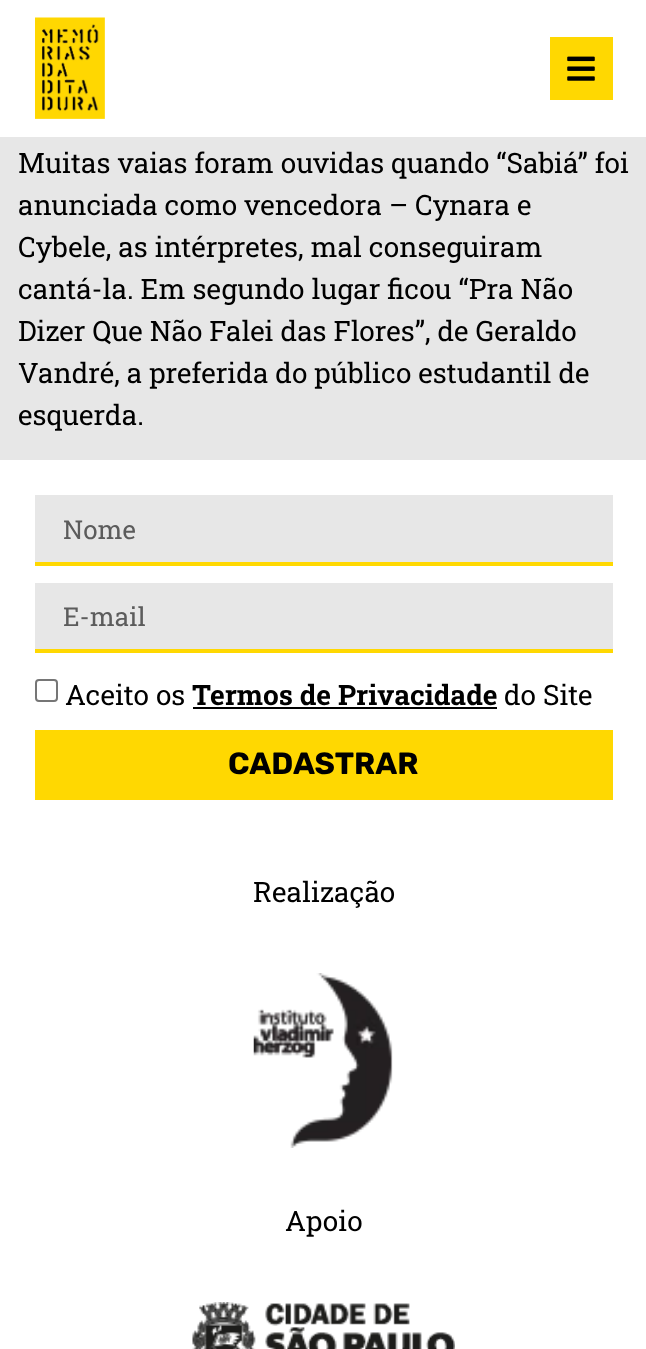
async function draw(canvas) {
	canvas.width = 646;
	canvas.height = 1349;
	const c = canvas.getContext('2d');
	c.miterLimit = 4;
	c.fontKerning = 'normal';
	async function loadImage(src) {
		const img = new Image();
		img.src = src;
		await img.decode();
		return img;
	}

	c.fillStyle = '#e7e7e7';
	c.fillRect(0, 0, 646, 1349);
	c.fillStyle = '#fff';
	c.fillRect(0, 0, 646, 137);
	c.drawImage(await loadImage('img1.png'), 35, 17, 70, 102);
	c.fillStyle = '#ffd801';
	c.fillRect(550, 37, 63, 63);
	c.drawImage(await loadImage('img2.png'), 567, 56, 28, 25);
	c.font = '28px Roboto Slab';
	c.fillStyle = '#000';
	for (const [text, x, y] of [
		['Muitas vaias foram ouvidas quando “Sabiá” foi', 18, 173],
		['anunciada como vencedora – Cynara e', 18, 215],
		['Cybele, as intérpretes, mal conseguiram', 18, 257],
		['cantá-la. Em segundo lugar ficou “Pra Não', 18, 299],
		['Dizer Que Não Falei das Flores”, de Geraldo', 18, 341],
		['Vandré, a preferida do público estudantil de', 18, 383],
		['esquerda.', 18, 425],
	]) {
		c.fillText(text, x, y);
	}
	for (const [x, y, w, h, color] of [
		[0, 460, 646, 889, '#fff'],
		[35, 495, 578, 67, '#e7e7e7'],
		[35, 562, 578, 4, '#ffd801'],
	]) {
		c.fillStyle = color;
		c.fillRect(x, y, w, h);
	}
	c.font = '26px Roboto Slab';
	c.fillStyle = '#5c5c5c';
	c.fillText('Nome', 63, 539);
	c.fillStyle = '#e7e7e7';
	c.fillRect(35, 583, 578, 66);
	c.fillStyle = '#ffd801';
	c.fillRect(35, 649, 578, 4);
	c.fillStyle = '#5c5c5c';
	c.fillText('E-mail', 63, 626);
	c.beginPath();
	c.roundRect(36, 680, 21, 21, 3);
	c.strokeStyle = '#767676';
	c.lineWidth = 2;
	c.stroke();
	c.font = '28px Roboto Slab';
	c.fillStyle = '#000';
	c.fillText('Aceito os', 65, 705);
	c.font = 'bold 28px Roboto Slab';
	c.fillText('Termos de Privacidade', 192, 705);
	c.fillRect(193, 707, 304, 2);
	c.font = '28px Roboto Slab';
	c.fillText('do Site', 504, 705);
	c.fillStyle = '#ffd801';
	c.fillRect(35, 730, 578, 70);
	c.font = 'bold 30.75px Rubik';
	c.fillStyle = '#000';
	c.fillText('CADASTRAR', 228, 774);
	c.font = '28px Roboto Slab';
	c.fillText('Realização', 253, 902);
	c.drawImage(await loadImage('img3.png'), 253, 973, 140, 175);
	c.fillText('Apoio', 285, 1231);
	c.drawImage(await loadImage('img4.png'), 192, 1302, 263, 47);
}

draw(document.querySelector('canvas'));
